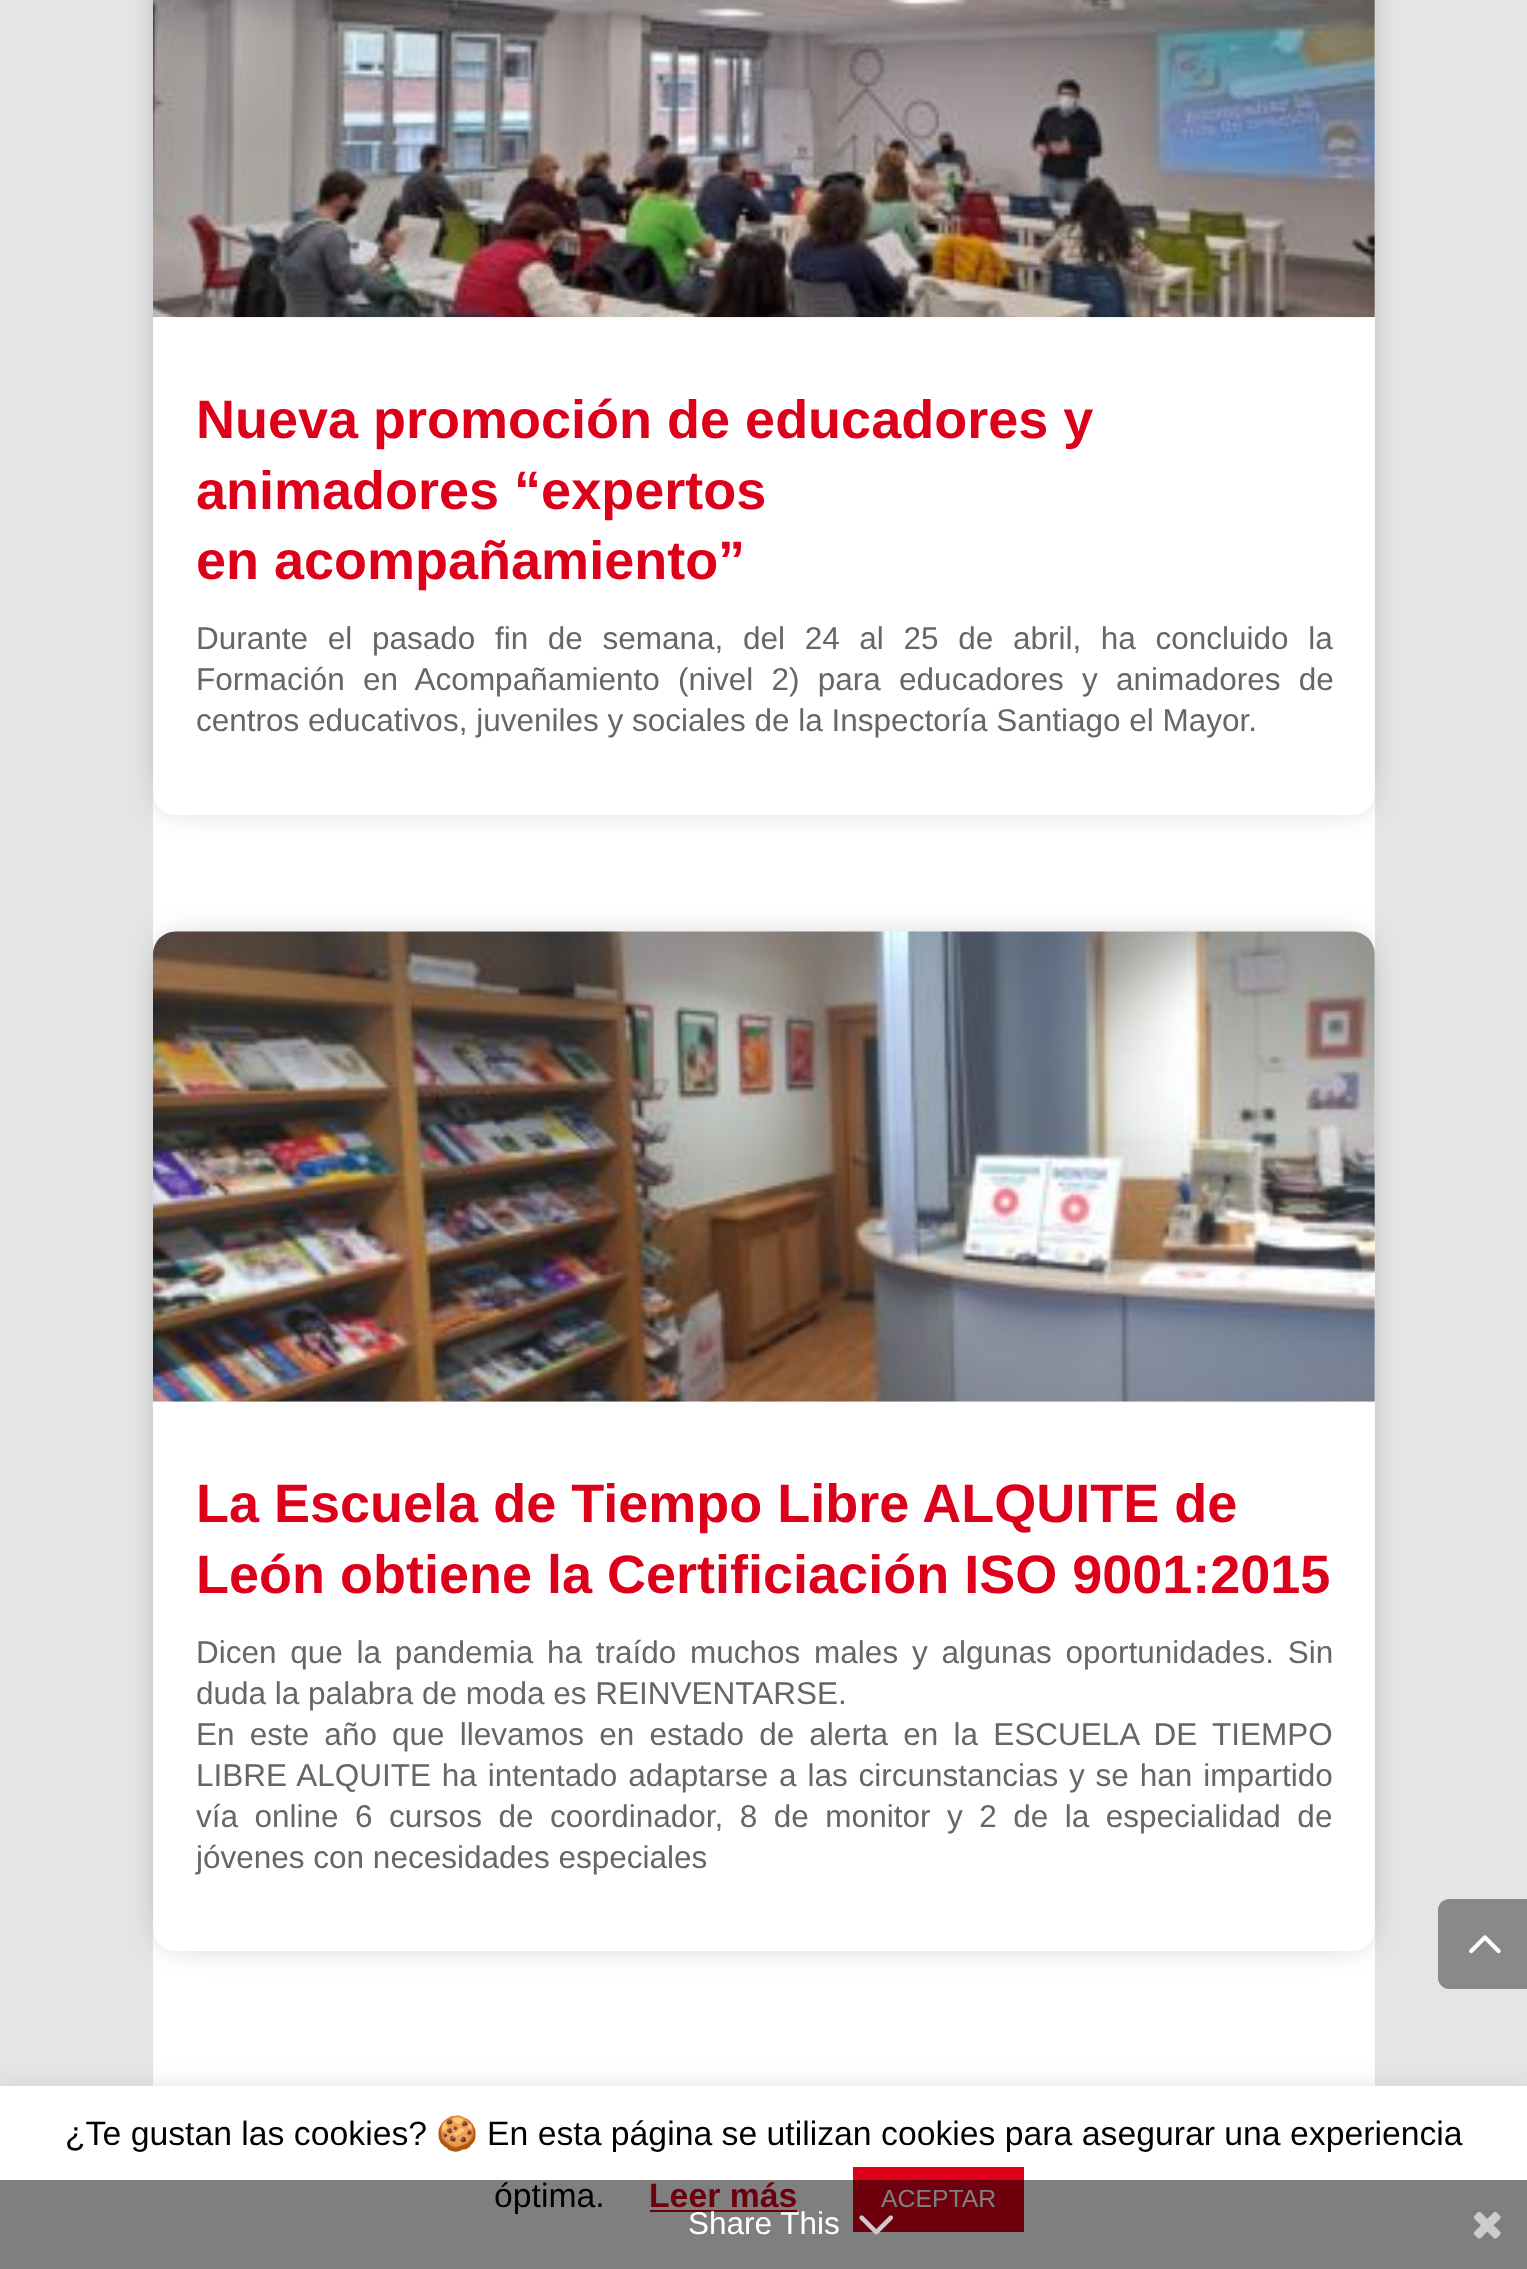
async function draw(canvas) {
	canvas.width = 1527;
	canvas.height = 2269;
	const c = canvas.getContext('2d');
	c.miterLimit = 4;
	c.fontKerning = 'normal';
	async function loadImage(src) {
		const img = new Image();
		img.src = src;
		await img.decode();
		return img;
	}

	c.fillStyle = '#e5e5e5';
	c.fillRect(0, 0, 1527, 2269);
	c.fillStyle = '#fff';
	c.fillRect(153, 792, 1222, 1294);
	c.fillStyle = '#0000004d';
	c.filter = 'blur(17px)';
	c.beginPath();
	c.roundRect(164, -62, 1200, 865, 11);
	c.fill();
	c.filter = 'none';
	c.fillStyle = '#fff';
	c.beginPath();
	c.roundRect(153, -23, 1222, 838, 23);
	c.fill();
	c.drawImage(await loadImage('img1.png'), 153, 0, 1222, 318);
	c.font = 'bold 54px Liberation Sans';
	c.fillStyle = '#dc001b';
	for (const [text, x, y] of [
		['Nueva promoción de educadores y', 196, 438],
		['animadores “expertos', 196, 509],
		['en acompañamiento”', 196, 579],
	]) {
		c.fillText(text, x, y);
	}
	c.wordSpacing = '10.9px';
	c.font = '31.5px Liberation Sans';
	c.fillStyle = '#666';
	c.fillText('Durante el pasado fin de semana, del 24 al 25 de abril, ha concluido la', 196, 649);
	c.wordSpacing = '9.5px';
	c.fillText('Formación en Acompañamiento (nivel 2) para educadores y animadores de', 196, 690);
	c.wordSpacing = '0px';
	c.fillText('centros educativos, juveniles y sociales de la Inspectoría Santiago el Mayor.', 196, 731);
	c.fillStyle = '#0000004d';
	c.filter = 'blur(17px)';
	c.beginPath();
	c.roundRect(164, 943, 1200, 997, 11);
	c.fill();
	c.filter = 'none';
	c.fillStyle = '#fff';
	c.beginPath();
	c.roundRect(153, 932, 1222, 1019, 23);
	c.fill();
	c.drawImage(await loadImage('img2.png'), 153, 931, 1222, 471);
	c.font = 'bold 54px Liberation Sans';
	c.fillStyle = '#dc001b';
	c.fillText('La Escuela de Tiempo Libre ALQUITE de', 196, 1522);
	c.fillText('León obtiene la Certificiación ISO 9001:2015', 196, 1593);
	c.wordSpacing = '5px';
	c.font = '31.5px Liberation Sans';
	c.fillStyle = '#666';
	c.fillText('Dicen que la pandemia ha traído muchos males y algunas oportunidades. Sin', 196, 1663);
	c.wordSpacing = '0px';
	c.fillText('duda la palabra de moda es REINVENTARSE.', 196, 1704);
	c.wordSpacing = '6.4px';
	c.fillText('En este año que llevamos en estado de alerta en la ESCUELA DE TIEMPO', 196, 1745);
	c.wordSpacing = '2.1px';
	c.fillText('LIBRE ALQUITE ha intentado adaptarse a las circunstancias y se han impartido', 196, 1786);
	c.wordSpacing = '7.75px';
	c.fillText('vía online 6 cursos de coordinador, 8 de monitor y 2 de la especialidad de', 196, 1827);
	c.wordSpacing = '0px';
	c.fillText('jóvenes con necesidades especiales', 196, 1868);
	c.fillStyle = '#898989';
	c.beginPath();
	c.moveTo(1449, 1899);
	c.lineTo(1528, 1899);
	c.lineTo(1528, 1989);
	c.lineTo(1449, 1989);
	c.bezierCurveTo(1443, 1989, 1438, 1984, 1438, 1978);
	c.lineTo(1438, 1910);
	c.bezierCurveTo(1438, 1904, 1443, 1899, 1449, 1899);
	c.closePath();
	c.fill();
	c.drawImage(await loadImage('img3.png'), 1469, 1935, 32, 19);
	c.fillStyle = '#acabab4d';
	c.filter = 'blur(11px)';
	c.beginPath();
	c.rect(0, 2084, 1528, 184);
	c.fill();
	c.filter = 'none';
	c.fillStyle = '#fff';
	c.fillRect(0, 2086, 1527, 183);
	c.font = '33.75px Liberation Sans';
	c.fillStyle = '#000';
	c.fillText('¿Te gustan las cookies?', 65, 2145);
	c.font = '33.75px Noto Color Emoji';
	c.fillText('🍪', 436, 2145);
	c.font = '33.75px Liberation Sans';
	c.fillText('En esta página se utilizan cookies para asegurar una experiencia', 487, 2145);
	c.fillText('óptima.', 494, 2207);
	c.font = 'bold 33.75px Liberation Sans';
	c.fillStyle = '#dc001b';
	c.fillText('Leer más', 649, 2207);
	c.fillRect(650, 2210, 147, 2);
	c.fillRect(853, 2167, 171, 65);
	c.font = '24.75px Liberation Sans';
	c.fillStyle = '#fff';
	c.fillText('ACEPTAR', 881, 2207);
	c.fillStyle = '#00000080';
	c.fillRect(0, 2180, 1527, 89);
	c.font = '31.5px Liberation Sans';
	c.fillStyle = '#fff';
	c.fillText('Share This', 688, 2234);
	c.drawImage(await loadImage('img4.png'), 859, 2215, 35, 20);
	c.drawImage(await loadImage('img5.png'), 1473, 2211, 28, 28);
}

draw(document.querySelector('canvas'));
